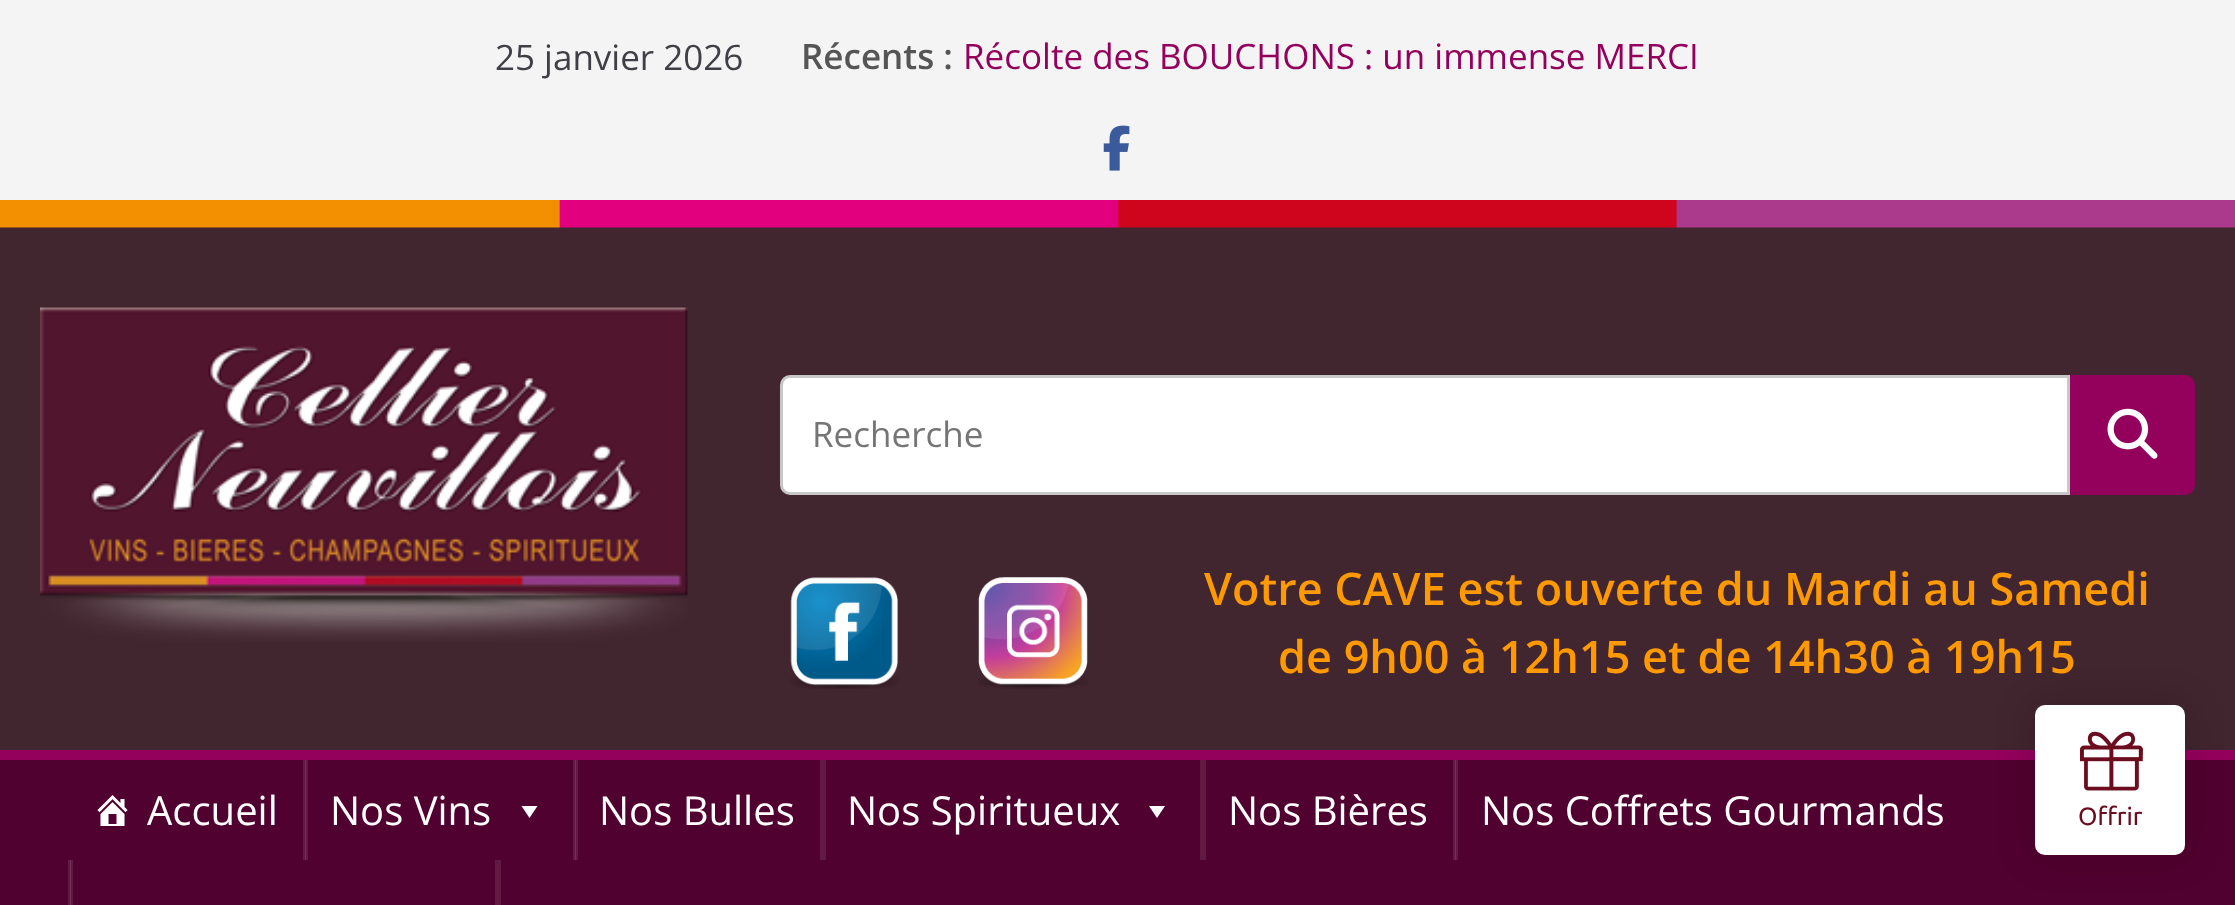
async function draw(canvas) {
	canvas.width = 2235;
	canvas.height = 905;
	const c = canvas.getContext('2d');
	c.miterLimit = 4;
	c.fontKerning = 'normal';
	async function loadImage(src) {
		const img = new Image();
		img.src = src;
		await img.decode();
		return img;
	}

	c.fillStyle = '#f4f4f5';
	c.fillRect(0, 0, 2235, 905);
	c.font = '35px Open Sans';
	c.fillStyle = '#3f3f46';
	c.fillText('25 janvier 2026', 495, 70);
	c.font = '600 35px Open Sans';
	c.fillStyle = '#555';
	c.fillText('Récents :', 801, 69);
	c.font = '35px Open Sans';
	c.fillStyle = '#94015c';
	c.fillText('Récolte des BOUCHONS : un immense MERCI', 963, 69);
	c.drawImage(await loadImage('img1.png'), 1103, 125, 27, 46);
	c.fillStyle = '#41252f';
	c.fillRect(0, 227, 2235, 523);
	c.drawImage(await loadImage('img2.png'), 0, 200, 2235, 28);
	c.drawImage(await loadImage('img3.png'), 40, 307, 648, 335);
	c.fillStyle = '#fff';
	c.beginPath();
	c.roundRect(781.5, 376.5, 1287, 117, [8.5, 0, 0, 8.5]);
	c.fill();
	c.strokeStyle = '#c7c7c7';
	c.lineWidth = 3;
	c.stroke();
	c.fillStyle = '#757575';
	c.fillText('Recherche', 812, 447);
	c.fillStyle = '#94015c';
	c.beginPath();
	c.roundRect(2071.5, 376.5, 122, 117, [0, 8.5, 8.5, 0]);
	c.fill();
	c.strokeStyle = '#94015c';
	c.stroke();
	c.drawImage(await loadImage('img4.png'), 2107, 408, 51, 51);
	c.drawImage(await loadImage('img5.png'), 790, 577, 109, 112);
	c.drawImage(await loadImage('img6.png'), 978, 577, 110, 112);
	c.font = '600 45px Open Sans';
	c.fillStyle = '#f90';
	c.fillText('Votre CAVE est ouverte du Mardi au Samedi', 1204, 605);
	c.fillText('de 9h00 à 12h15 et de 14h30 à 19h15', 1278, 673);
	for (const [x, y, w, h, color] of [
		[0, 760, 2235, 145, '#51012f'],
		[68, 860, 2, 45, '#621a44'],
		[1453, 760, 2, 100, '#621a44'],
		[573, 760, 2, 100, '#621a44'],
		[303, 760, 2, 100, '#621a44'],
		[0, 750, 2235, 10, '#94015c'],
	]) {
		c.fillStyle = color;
		c.fillRect(x, y, w, h);
	}
	c.drawImage(await loadImage('img7.png'), 97, 795, 31, 31);
	c.font = '40px Open Sans';
	c.fillStyle = '#fff';
	c.fillText('Accueil', 147, 825);
	c.fillStyle = '#621a44';
	c.fillRect(306, 760, 2, 100);
	c.fillStyle = '#723157';
	c.fillRect(305, 760, 1, 100);
	c.fillStyle = '#fff';
	c.fillText('Nos Vins', 330, 825);
	c.beginPath();
	c.moveTo(537.5, 806);
	c.lineTo(529.5, 818);
	c.lineTo(521.5, 806);
	c.closePath();
	c.fill();
	c.fillStyle = '#621a44';
	c.fillRect(576, 760, 2, 100);
	c.fillStyle = '#723157';
	c.fillRect(575, 760, 1, 100);
	c.fillStyle = '#fff';
	c.fillText('Nos Bulles', 599, 825);
	c.fillStyle = '#621a44';
	c.fillRect(820, 760, 6, 100);
	c.fillStyle = '#fff';
	c.fillText('Nos Spiritueux', 847, 825);
	c.beginPath();
	c.moveTo(1165, 806);
	c.lineTo(1157, 818);
	c.lineTo(1149, 806);
	c.closePath();
	c.fill();
	c.fillStyle = '#621a44';
	c.fillRect(1200, 760, 6, 100);
	c.fillStyle = '#fff';
	c.fillText('Nos Bières', 1228, 825);
	c.fillStyle = '#621a44';
	c.fillRect(1456, 760, 2, 100);
	c.fillStyle = '#723157';
	c.fillRect(1455, 760, 1, 100);
	c.fillStyle = '#fff';
	c.fillText('Nos Coffrets Gourmands', 1481, 825);
	for (const [x, y, w, h, color] of [
		[71, 860, 2, 45, '#621a44'],
		[70, 860, 1, 45, '#723157'],
		[495, 860, 6, 45, '#621a44'],
	]) {
		c.fillStyle = color;
		c.fillRect(x, y, w, h);
	}
	c.save();
	c.beginPath();
	c.moveTo(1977, 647);
	c.lineTo(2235, 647);
	c.lineTo(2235, 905);
	c.lineTo(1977, 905);
	c.closePath();
	c.moveTo(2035, 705);
	c.lineTo(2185, 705);
	c.lineTo(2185, 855);
	c.lineTo(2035, 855);
	c.closePath();
	c.clip('evenodd');
	c.fillStyle = '#00000026';
	c.filter = 'blur(19px)';
	c.beginPath();
	c.rect(2035, 705, 150, 150);
	c.fill();
	c.filter = 'none';
	c.restore();
	c.fillStyle = '#fff';
	c.beginPath();
	c.roundRect(2035, 705, 150, 150, 10);
	c.fill();
	c.drawImage(await loadImage('img8.png'), 2080, 731, 63, 60);
	c.font = '25px Ubuntu';
	c.fillStyle = '#6c0c1f';
	c.fillText('Offrir', 2078, 825);
}

draw(document.querySelector('canvas'));
